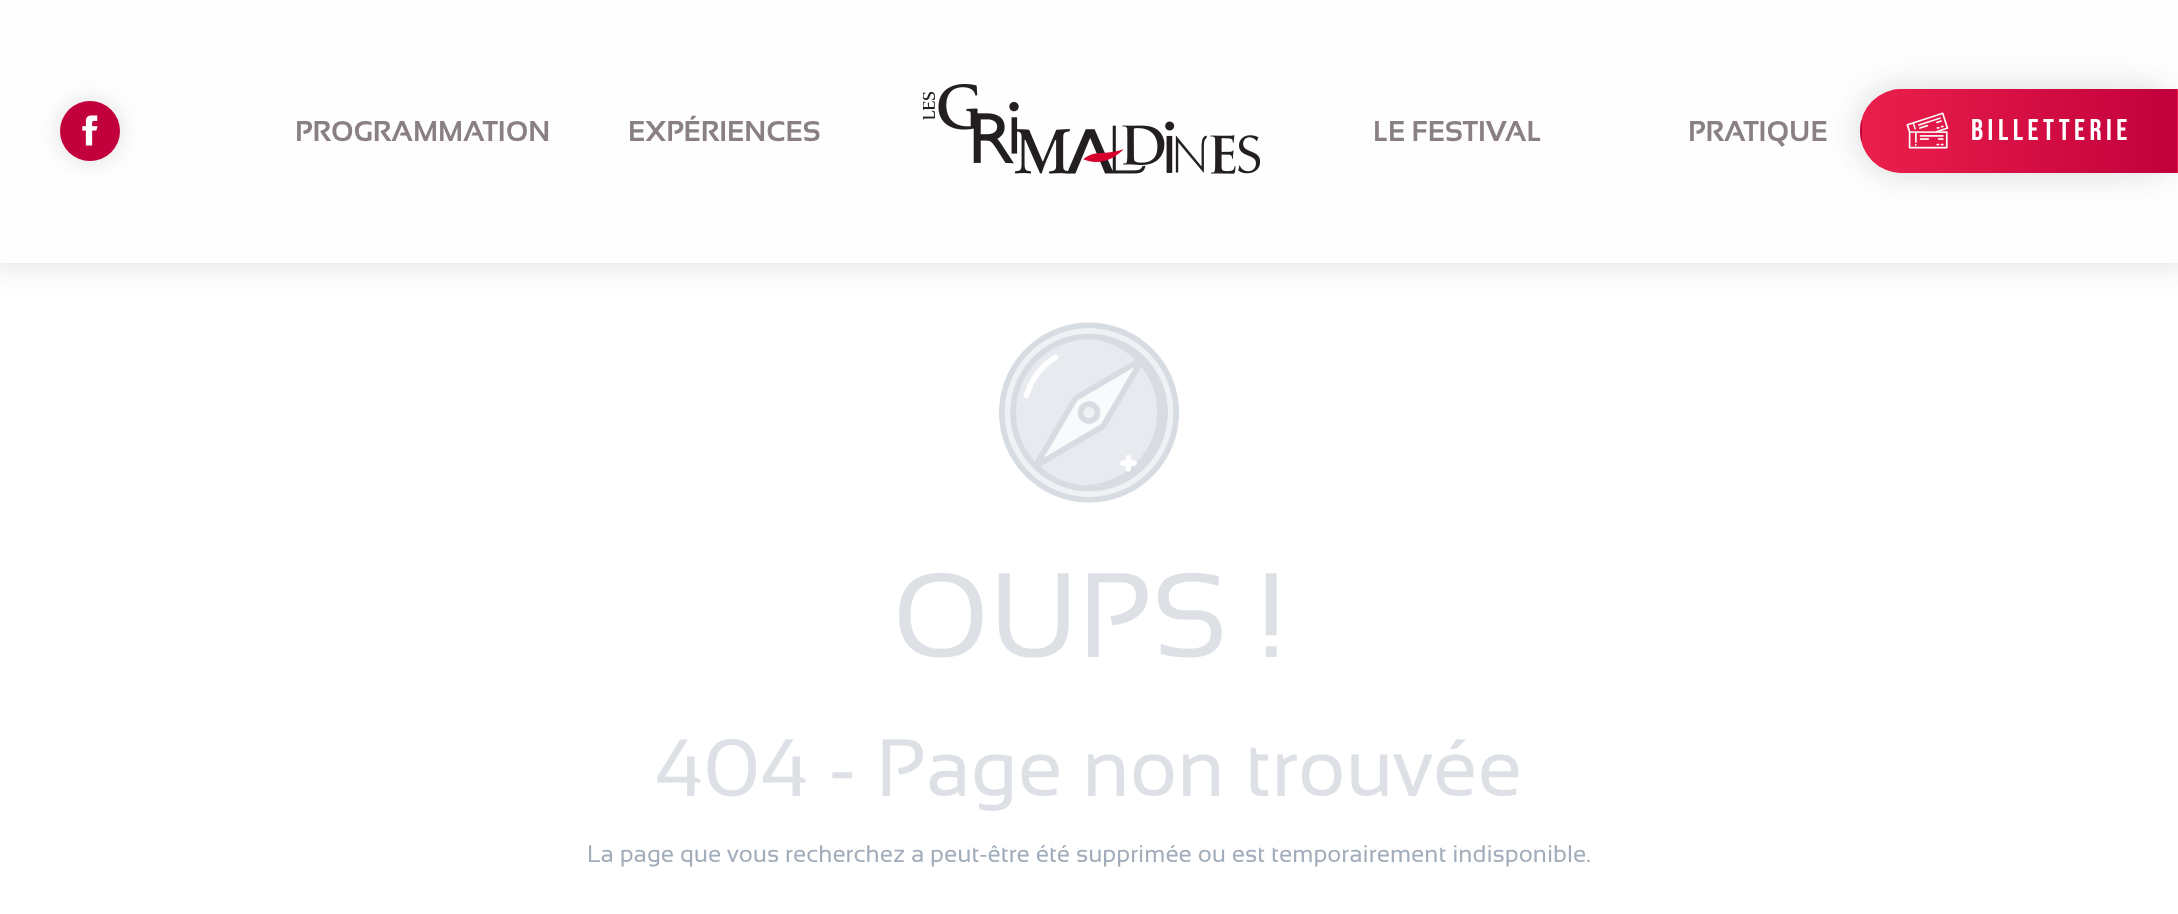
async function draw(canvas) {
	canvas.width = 2178;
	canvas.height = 914;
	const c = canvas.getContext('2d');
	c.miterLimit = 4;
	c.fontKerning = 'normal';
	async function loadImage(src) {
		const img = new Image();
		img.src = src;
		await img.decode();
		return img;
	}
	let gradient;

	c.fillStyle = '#fff';
	c.fillRect(0, 0, 2178, 914);
	c.fillStyle = '#231f2026';
	c.filter = 'blur(15px)';
	c.beginPath();
	c.rect(-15, -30, 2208, 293);
	c.fill();
	c.filter = 'none';
	c.fillStyle = '#fefefe';
	c.fillRect(0, 0, 2178, 263);
	c.fillStyle = '#231f2026';
	c.filter = 'blur(11px)';
	c.beginPath();
	c.roundRect(60, 101, 60, 60, 30);
	c.fill();
	c.filter = 'none';
	c.fillStyle = '#c1003c';
	c.beginPath();
	c.arc(90, 131, 30, 0, 2 * Math.PI);
	c.fill();
	c.drawImage(await loadImage('img1.png'), 82, 115, 16, 31);
	c.font = 'bold 28.5px Sansation';
	c.fillStyle = '#8a8082';
	c.fillText('PROGRAMMATION', 295, 141);
	c.fillText('EXPÉRIENCES', 628, 141);
	c.drawImage(await loadImage('img2.png'), 923, 84, 337, 90);
	c.fillText('LE FESTIVAL', 1373, 141);
	c.fillText('PRATIQUE', 1688, 141);
	c.fillStyle = '#231f2026';
	c.filter = 'blur(15px)';
	c.beginPath();
	c.roundRect(1857, 86, 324, 90, 45);
	c.fill();
	c.filter = 'none';
	c.fillStyle = '#eb1f4b';
	c.beginPath();
	c.roundRect(1860, 89, 318, 84, [42, 0, 0, 42]);
	c.fill();
	c.save();
	c.beginPath();
	c.roundRect(1860, 89, 318, 84, [42, 0, 0, 42]);
	c.clip();
	gradient = c.createLinearGradient(1547, 131, 1862, 131);
	gradient.addColorStop(0, '#eb1f4b');
	gradient.addColorStop(1, '#c1003c');
	c.fillStyle = gradient;
	c.fillRect(1860, 118, 2, 26);
	gradient = c.createLinearGradient(1862, 131, 2177, 131);
	gradient.addColorStop(0, '#eb1f4b');
	gradient.addColorStop(1, '#c1003c');
	c.fillStyle = gradient;
	c.fillRect(1862, 89, 315, 84);
	c.restore();
	c.drawImage(await loadImage('img3.png'), 1906, 112, 43, 37);
	c.letterSpacing = '4.5px';
	c.font = '30px Bebas Neue';
	c.fillStyle = '#fefefe';
	c.fillText('BILLETTERIE', 1971, 140);
	c.drawImage(await loadImage('img4.png'), 999, 322, 180, 181);
	c.letterSpacing = '0px';
	c.font = '120px Sansation';
	c.fillStyle = '#dde1e6';
	c.fillText('OUPS !', 892, 657);
	c.font = '81px Sansation';
	c.fillText('404 - Page non trouvée', 655, 796);
	c.font = '24px Sansation';
	c.fillStyle = '#a2adbb';
	c.fillText('La page que vous recherchez a peut-être été supprimée ou est temporairement indisponible.', 587, 862);
}

draw(document.querySelector('canvas'));
